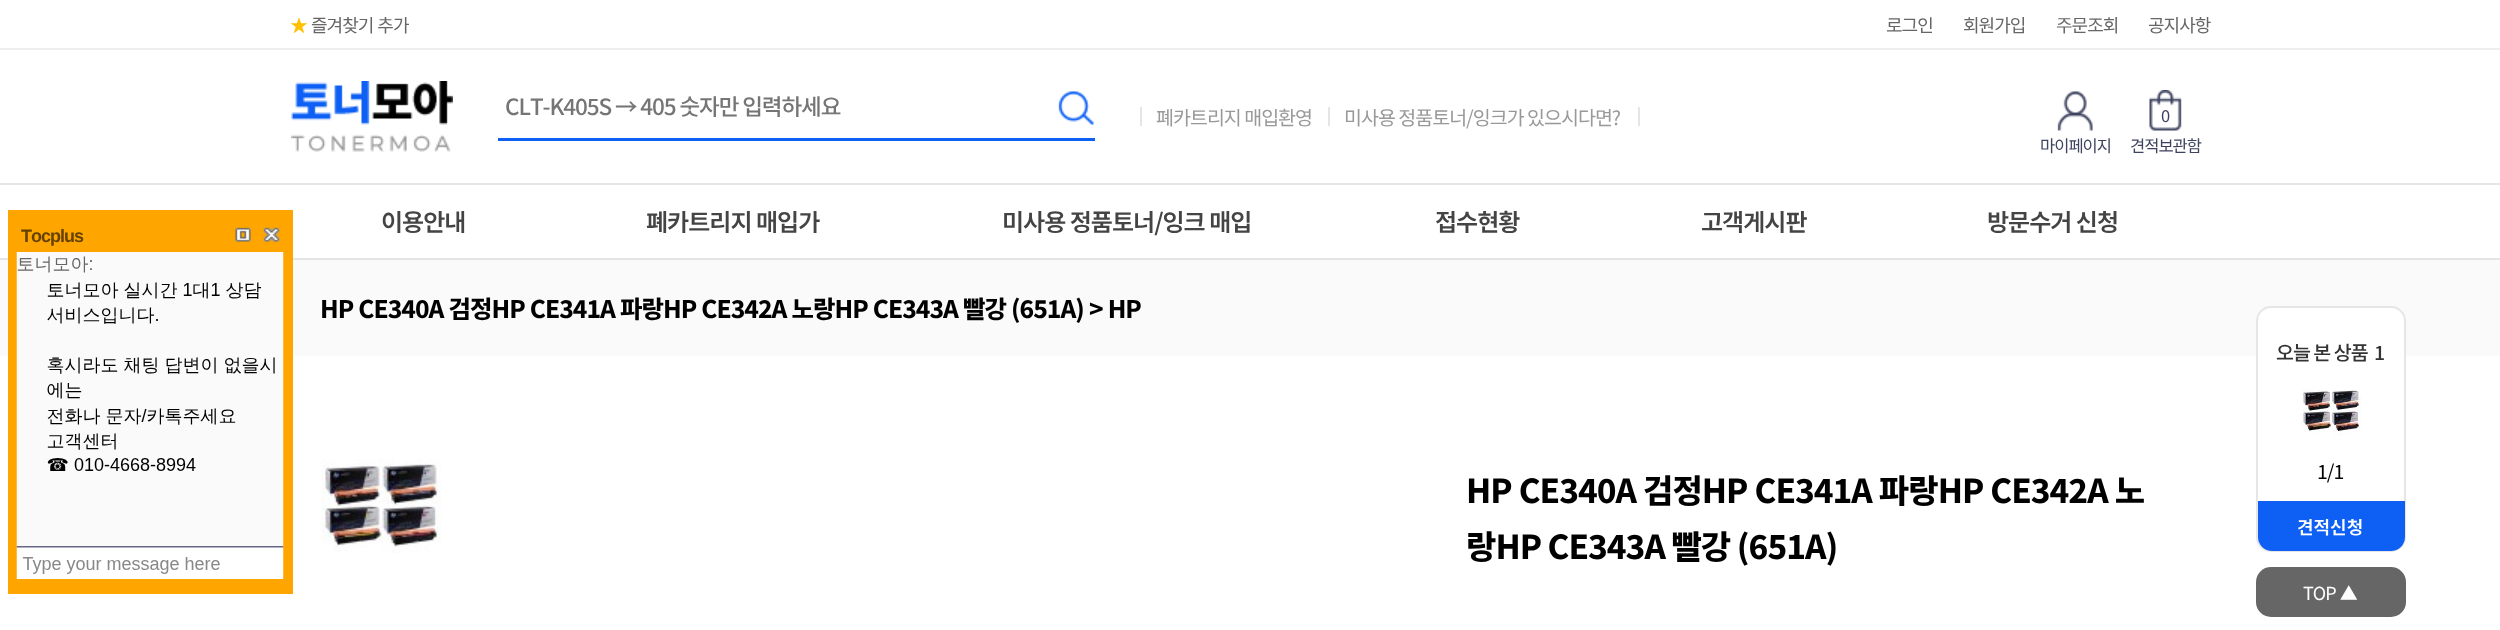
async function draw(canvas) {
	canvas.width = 2500;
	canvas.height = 630;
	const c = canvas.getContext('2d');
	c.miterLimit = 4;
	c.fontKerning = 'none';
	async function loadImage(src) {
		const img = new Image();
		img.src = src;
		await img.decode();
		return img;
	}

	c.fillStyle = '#fff';
	c.fillRect(0, 0, 2500, 630);
	c.fillStyle = '#e5e5e5';
	c.fillRect(0, 258, 2500, 2);
	c.fillStyle = '#fafafa';
	c.fillRect(0, 260, 2500, 96);
	c.strokeStyle = '#ffa500';
	c.lineWidth = 3;
	c.strokeRect(9.5, 211.5, 282, 381);
	c.fillStyle = '#ffa500';
	c.fillRect(11, 213, 279, 378);
	c.letterSpacing = '-0.98px';
	c.font = 'bold 18px Liberation Sans';
	c.fillStyle = '#664200';
	c.fillText('Tocplus', 21, 242);
	c.drawImage(await loadImage('img1.png'), 235, 227, 16, 15);
	c.drawImage(await loadImage('img2.png'), 263, 227, 17, 15);
	c.drawImage(await loadImage('img3.png'), 16, 252, 268, 327);
	c.fillStyle = '#eee';
	c.fillRect(0, 48, 2500, 2);
	c.font = '18px Noto Sans KR';
	c.fillStyle = '#ffc000';
	c.fillText('★', 290, 32);
	c.wordSpacing = '1px';
	c.fillStyle = '#666';
	c.fillText('즐겨찾기 추가', 311, 32);
	c.wordSpacing = '0px';
	for (const [text, x, y] of [
		['로그인', 1886, 32],
		['회원가입', 1963, 32],
		['주문조회', 2056, 32],
		['공지사항', 2148, 32],
	]) {
		c.fillText(text, x, y);
	}
	c.fillStyle = '#e5e5e5';
	c.fillRect(0, 183, 2500, 2);
	c.drawImage(await loadImage('img4.png'), 291, 81, 162, 71);
	c.fillStyle = '#0e60f5';
	c.fillRect(498, 138, 597, 3);
	c.letterSpacing = '-1.1px';
	c.font = '500 22.5px Noto Sans KR';
	c.fillStyle = '#757575';
	c.fillText('CLT-K405S', 505, 115);
	c.fillText('→ 405 숫자만 입력하세요', 615, 115);
	c.drawImage(await loadImage('img5.png'), 1058, 91, 36, 34);
	c.fillStyle = '#e5e5e5';
	c.fillRect(1328, 107, 2, 19);
	c.fillRect(1140, 107, 2, 19);
	c.letterSpacing = '-0.98px';
	c.font = '19.5px Noto Sans KR';
	c.fillStyle = '#999';
	c.fillText('폐카트리지 매입환영', 1156, 125);
	c.fillStyle = '#e5e5e5';
	c.fillRect(1638, 107, 2, 19);
	c.fillStyle = '#999';
	c.fillText('미사용 정품토너/잉크가 있으시다면?', 1344, 125);
	c.drawImage(await loadImage('img6.png'), 2057, 91, 36, 40);
	c.font = '16.5px Noto Sans KR';
	c.fillStyle = '#3e4460';
	c.fillText('마이페이지', 2040, 152);
	c.drawImage(await loadImage('img7.png'), 2149, 90, 33, 41);
	c.fillText('0', 2161, 122);
	c.fillText('견적보관함', 2130, 152);
	c.font = '600 24px Noto Sans KR';
	c.fillStyle = '#444';
	for (const [text, x, y] of [
		['이용안내', 381, 231],
		['폐카트리지 매입가', 646, 231],
		['미사용 정품토너/잉크 매입', 1002, 231],
		['접수현황', 1435, 231],
		['고객게시판', 1701, 231],
		['방문수거 신청', 1987, 231],
	]) {
		c.fillText(text, x, y);
	}
	c.wordSpacing = '0.5px';
	c.font = '800 24.4px Noto Sans KR';
	c.fillStyle = '#000';
	c.fillText('HP CE340A 검정HP CE341A 파랑HP CE342A 노랑HP CE343A 빨강 (651A) > HP', 320, 318);
	c.drawImage(await loadImage('img8.png'), 321, 459, 120, 94);
	c.font = '800 33px Noto Sans KR';
	c.fillText('HP CE340A 검정HP CE341A 파랑HP CE342A 노', 1466, 503);
	c.wordSpacing = '0px';
	c.fillText('랑HP CE343A 빨강 (651A)', 1466, 559);
	c.fillStyle = '#fff';
	c.beginPath();
	c.roundRect(2257, 307, 148, 244, 14);
	c.fill();
	c.strokeStyle = '#e6e6e6';
	c.lineWidth = 2;
	c.stroke();
	c.font = '500 19.5px Noto Sans KR';
	c.fillStyle = '#333';
	c.fillText('오늘 본 상품', 2276, 360);
	c.fillText('1', 2374, 360);
	c.drawImage(await loadImage('img9.png'), 2301, 389, 60, 47);
	c.font = '19.5px Noto Sans KR';
	c.fillStyle = '#000';
	c.fillText('1/1', 2317, 479);
	c.fillStyle = '#0e60f5';
	c.beginPath();
	c.roundRect(2258, 501, 147, 50, [0, 0, 14, 14]);
	c.fill();
	c.letterSpacing = '0px';
	c.font = '600 18px Noto Sans KR';
	c.fillStyle = '#fff';
	c.fillText('견적신청', 2297, 534);
	c.fillStyle = '#666';
	c.beginPath();
	c.roundRect(2256, 567, 150, 50, 15);
	c.fill();
	c.letterSpacing = '-0.98px';
	c.wordSpacing = '1px';
	c.font = '18px Noto Sans KR';
	c.fillStyle = '#fff';
	c.fillText('TOP ▲', 2303, 600);
}

draw(document.querySelector('canvas'));
